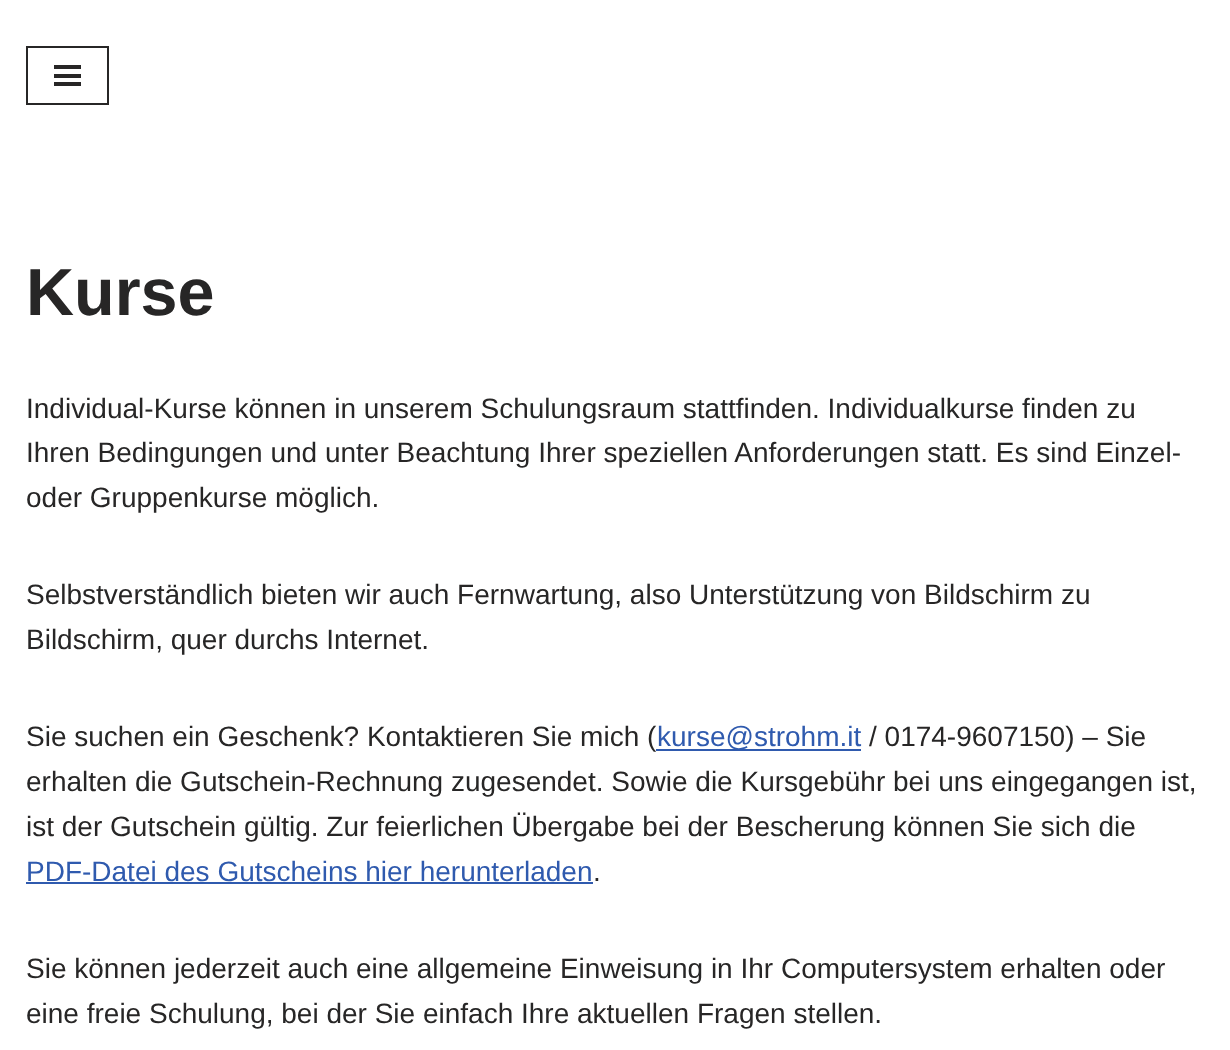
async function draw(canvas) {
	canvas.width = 1230;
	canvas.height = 1050;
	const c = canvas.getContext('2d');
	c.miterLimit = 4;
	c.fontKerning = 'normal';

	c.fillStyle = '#fff';
	c.fillRect(0, 0, 1230, 1050);
	c.strokeStyle = '#272626';
	c.lineWidth = 2;
	c.strokeRect(27, 47, 81, 57);
	for (const [x, y, w, h, color] of [
		[54, 65, 27, 4, '#272626'],
		[54, 74, 27, 4, '#272626'],
		[54, 82, 27, 4, '#272626'],
	]) {
		c.fillStyle = color;
		c.fillRect(x, y, w, h);
	}
	c.font = 'bold 66.5px Liberation Sans';
	c.fillText('Kurse', 26, 315);
	c.font = '28px Liberation Sans';
	for (const [text, x, y] of [
		['Individual-Kurse können in unserem Schulungsraum stattfinden. Individualkurse finden zu', 26, 418],
		['Ihren Bedingungen und unter Beachtung Ihrer speziellen Anforderungen statt. Es sind Einzel-', 26, 462],
		['oder Gruppenkurse möglich.', 26, 507],
		['Selbstverständlich bieten wir auch Fernwartung, also Unterstützung von Bildschirm zu', 26, 604],
		['Bildschirm, quer durchs Internet.', 26, 649],
		['Sie suchen ein Geschenk? Kontaktieren Sie mich (', 26, 746],
	]) {
		c.fillText(text, x, y);
	}
	c.fillStyle = '#2f5aae';
	c.fillRect(656, 749, 205, 2);
	c.fillText('kurse@strohm.it', 657, 746);
	c.fillStyle = '#272626';
	for (const [text, x, y] of [
		['/ 0174-9607150) – Sie', 869, 746],
		['erhalten die Gutschein-Rechnung zugesendet. Sowie die Kursgebühr bei uns eingegangen ist,', 26, 791],
		['ist der Gutschein gültig. Zur feierlichen Übergabe bei der Bescherung können Sie sich die', 26, 836],
	]) {
		c.fillText(text, x, y);
	}
	c.fillStyle = '#2f5aae';
	c.fillText('PDF-Datei des Gutscheins hier herunterladen', 26, 881);
	c.fillRect(26, 882, 567, 2);
	c.fillStyle = '#272626';
	for (const [text, x, y] of [
		['.', 593, 881],
		['Sie können jederzeit auch eine allgemeine Einweisung in Ihr Computersystem erhalten oder', 26, 978],
		['eine freie Schulung, bei der Sie einfach Ihre aktuellen Fragen stellen.', 26, 1023],
	]) {
		c.fillText(text, x, y);
	}
}

draw(document.querySelector('canvas'));
